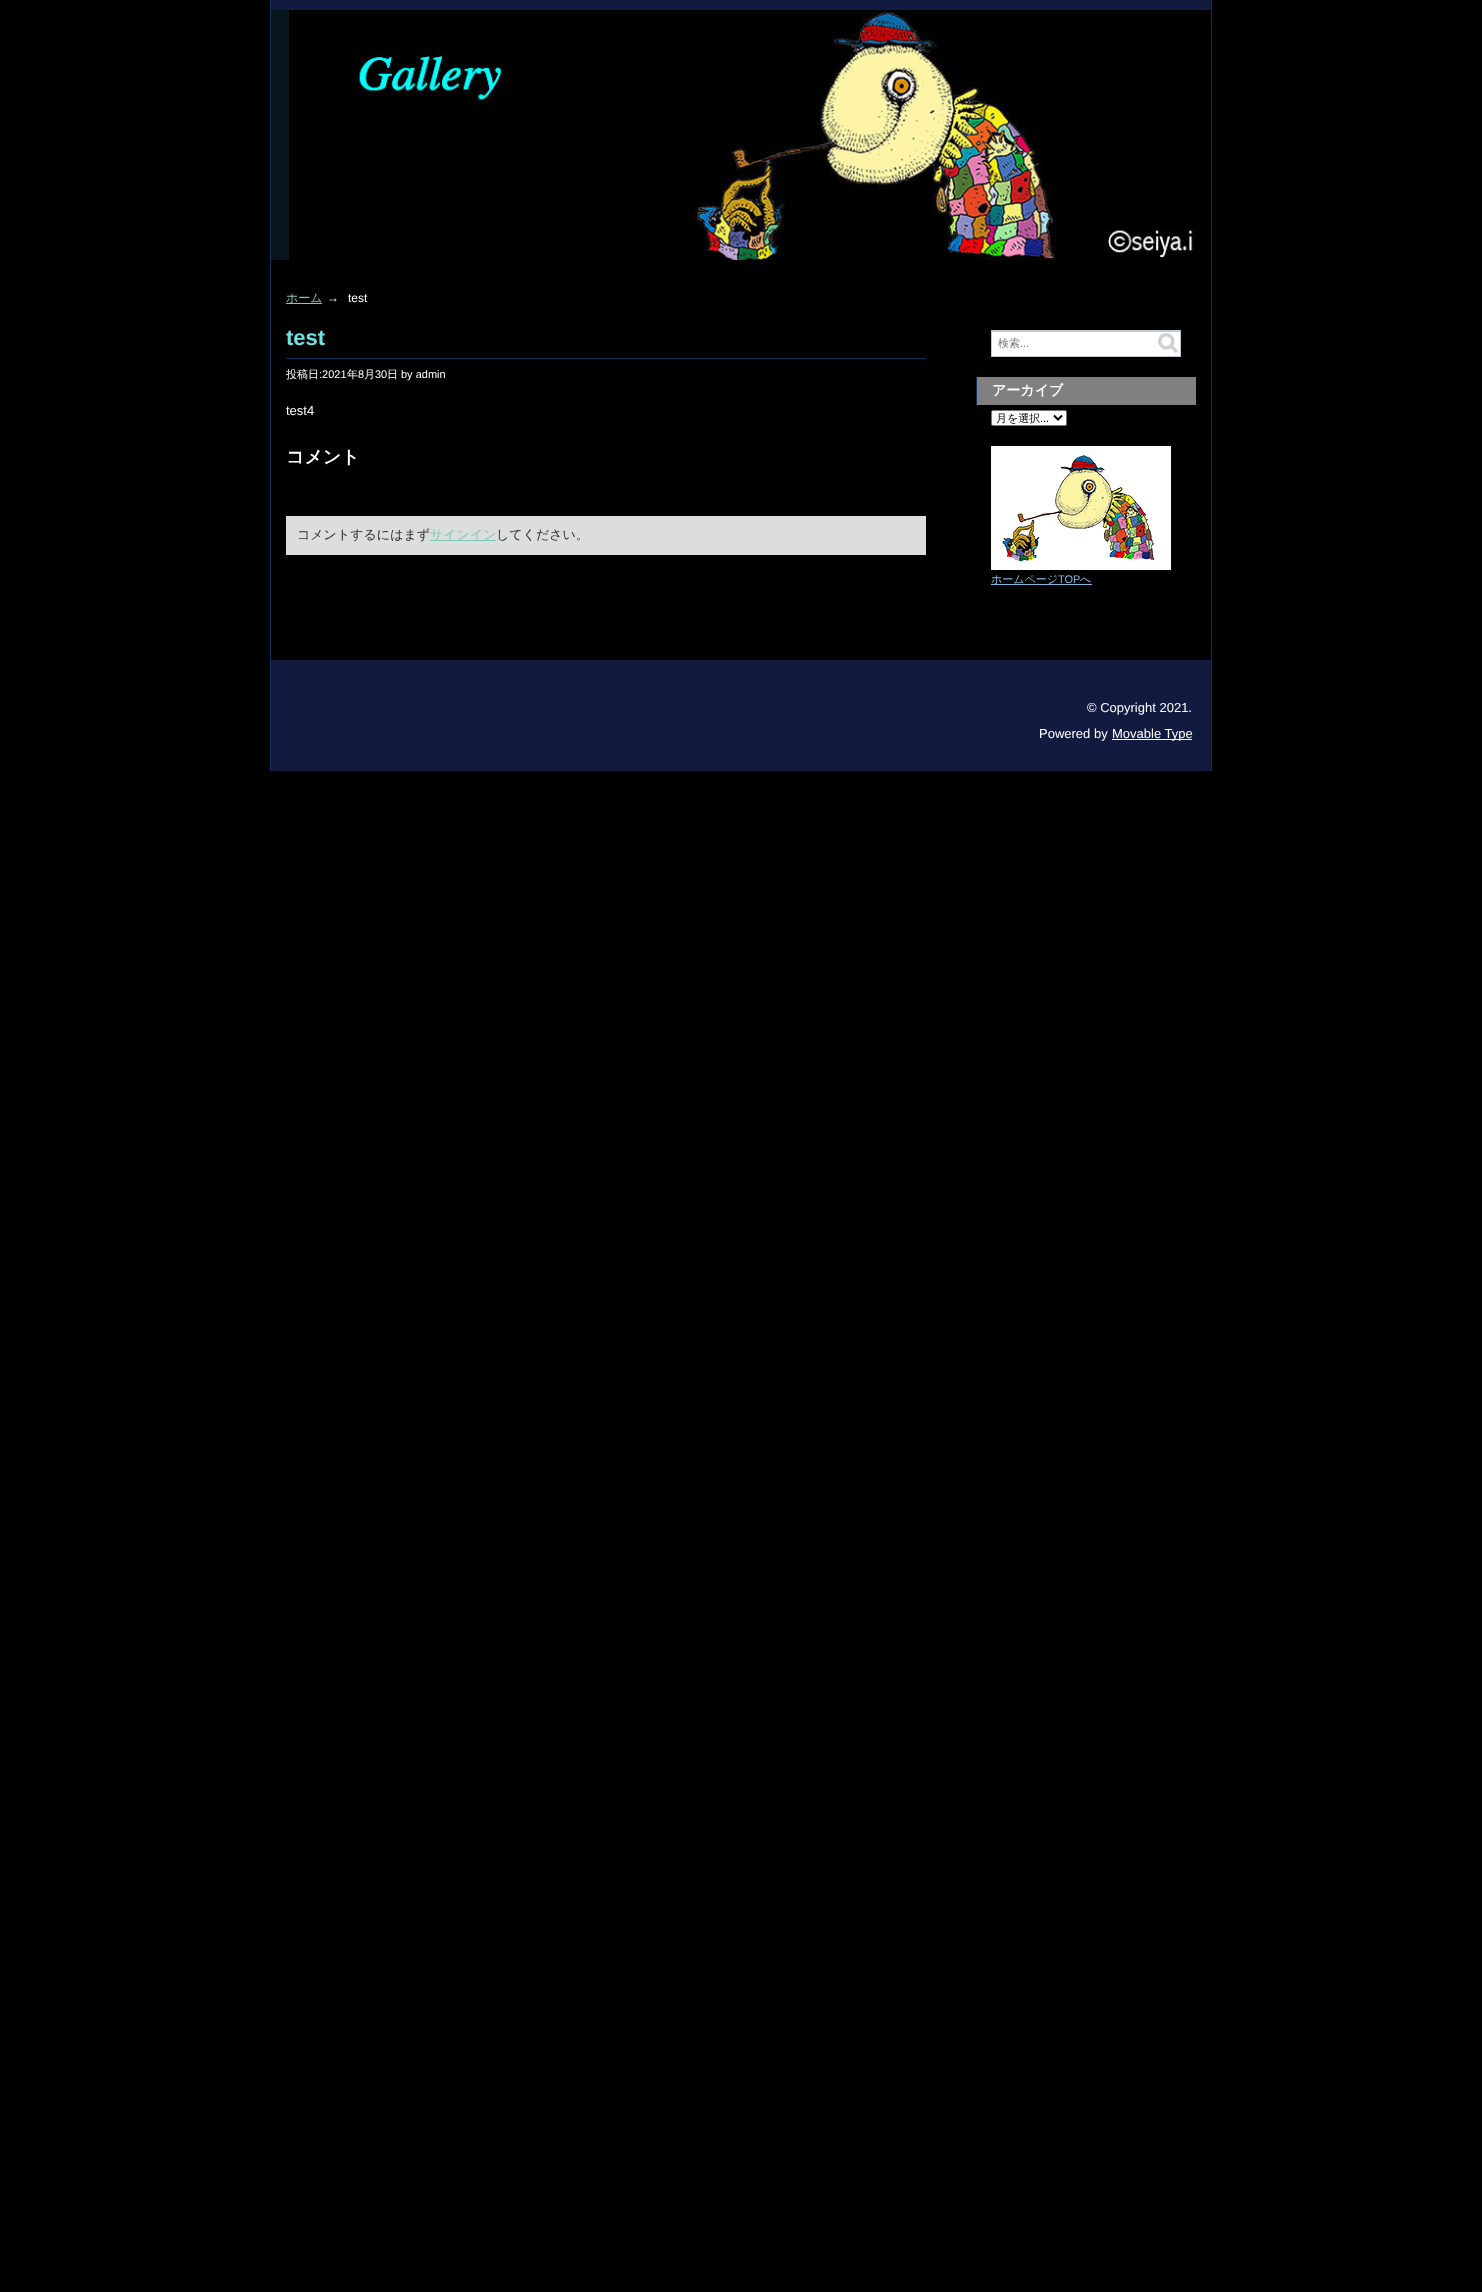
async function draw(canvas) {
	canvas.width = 1482;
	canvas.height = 2292;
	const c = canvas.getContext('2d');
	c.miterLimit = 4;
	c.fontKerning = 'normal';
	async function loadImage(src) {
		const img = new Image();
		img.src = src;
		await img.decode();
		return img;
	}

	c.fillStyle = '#000';
	c.fillRect(0, 0, 1482, 2292);
	for (const [x, y, w, h, color] of [
		[1211, 0, 1, 771, '#0d2f5f'],
		[270, 0, 1, 771, '#0d2f5f'],
		[271, 10, 18, 250, '#06161c'],
	]) {
		c.fillStyle = color;
		c.fillRect(x, y, w, h);
	}
	c.drawImage(await loadImage('img1.png'), 289, 10, 922, 250);
	c.fillStyle = '#121a3f';
	c.fillRect(271, 0, 940, 10);
	c.fillStyle = '#81c9b6';
	c.fillRect(286, 303, 36, 1);
	c.font = '500 12px WenQuanYi Zen Hei';
	c.fillText('ホーム', 286, 302);
	c.font = '12px Liberation Sans';
	c.fillStyle = '#fff';
	c.fillText('→', 327, 302);
	c.fillText('test', 348, 302);
	c.font = 'bold 22px Liberation Sans';
	c.fillStyle = '#73e0e1';
	c.fillText('test', 286, 345);
	c.fillStyle = '#0d2f5f';
	c.fillRect(286, 358, 640, 1);
	c.font = '500 11px WenQuanYi Zen Hei';
	c.fillStyle = '#fff';
	c.fillText('投稿日', 286, 378);
	c.font = '11px Liberation Sans';
	c.fillText(':2021', 319, 378);
	c.font = '500 11px WenQuanYi Zen Hei';
	c.fillText('年', 347, 378);
	c.font = '11px Liberation Sans';
	c.fillText('8', 358, 378);
	c.font = '500 11px WenQuanYi Zen Hei';
	c.fillText('月', 364, 378);
	c.font = '11px Liberation Sans';
	c.fillText('30', 375, 378);
	c.font = '500 11px WenQuanYi Zen Hei';
	c.fillText('日', 387, 378);
	c.font = '11px Liberation Sans';
	c.fillText('by admin', 401, 378);
	c.font = '13px Liberation Sans';
	c.fillText('test4', 286, 415);
	c.font = 'bold 18px WenQuanYi Zen Hei';
	c.fillText('コメント', 286, 463);
	c.fillStyle = '#dcdddd';
	c.fillRect(286, 516, 640, 39);
	c.font = '500 13px WenQuanYi Zen Hei';
	c.fillStyle = '#2b2b2b';
	c.fillText('コメントするにはまず', 297, 539);
	c.fillStyle = '#81c9b6';
	c.fillRect(430, 540, 66, 1);
	c.fillText('サインイン', 430, 539);
	c.fillStyle = '#2b2b2b';
	c.fillText('してください。', 496, 539);
	c.fillStyle = '#fff';
	c.fillRect(992, 332, 188, 24);
	c.fillStyle = '#ccc';
	c.fillRect(992, 331, 188, 1);
	c.strokeStyle = '#c0c6c9';
	c.strokeRect(991.5, 330.5, 189, 26);
	c.font = '500 11px WenQuanYi Zen Hei';
	c.fillStyle = '#757575';
	c.fillText('検索', 998, 347);
	c.font = '11px Liberation Sans';
	c.fillText('...', 1020, 347);
	c.drawImage(await loadImage('img2.png'), 1158, 333, 20, 20);
	c.fillStyle = '#808080';
	c.fillRect(977, 377, 219, 28);
	c.fillStyle = '#0d2f5f';
	c.fillRect(976, 377, 1, 28);
	c.font = 'bold 14px WenQuanYi Zen Hei';
	c.fillStyle = '#fff';
	c.fillText('アーカイブ', 992, 395);
	c.beginPath();
	c.roundRect(991.5, 410.5, 75, 15, 1.5);
	c.fill();
	c.strokeStyle = '#767676';
	c.stroke();
	c.beginPath();
	c.moveTo(1054, 415.5);
	c.lineTo(1058, 419.5);
	c.lineTo(1062, 415.5);
	c.strokeStyle = '#000';
	c.lineWidth = 2;
	c.stroke();
	c.font = '500 11px WenQuanYi Zen Hei';
	c.fillStyle = '#000';
	c.fillText('月を選択', 996, 422);
	c.font = '11px Liberation Sans';
	c.fillText('...', 1040, 422);
	c.drawImage(await loadImage('img3.png'), 991, 446, 180, 124);
	c.fillStyle = '#81b8dd';
	c.fillRect(991, 584, 101, 1);
	c.font = '500 11px WenQuanYi Zen Hei';
	c.fillText('ホームページ', 991, 583);
	c.font = '11px Liberation Sans';
	c.fillText('TOP', 1058, 583);
	c.font = '500 11px WenQuanYi Zen Hei';
	c.fillText('へ', 1080, 583);
	c.fillStyle = '#121a3f';
	c.fillRect(271, 660, 940, 111);
	c.font = '13px Liberation Sans';
	c.fillStyle = '#fff';
	c.fillText('© Copyright 2021.', 1087, 712);
	c.fillText('Powered by', 1039, 738);
	c.fillRect(1112, 739, 80, 1);
	c.fillText('Movable Type', 1112, 738);
}

draw(document.querySelector('canvas'));
